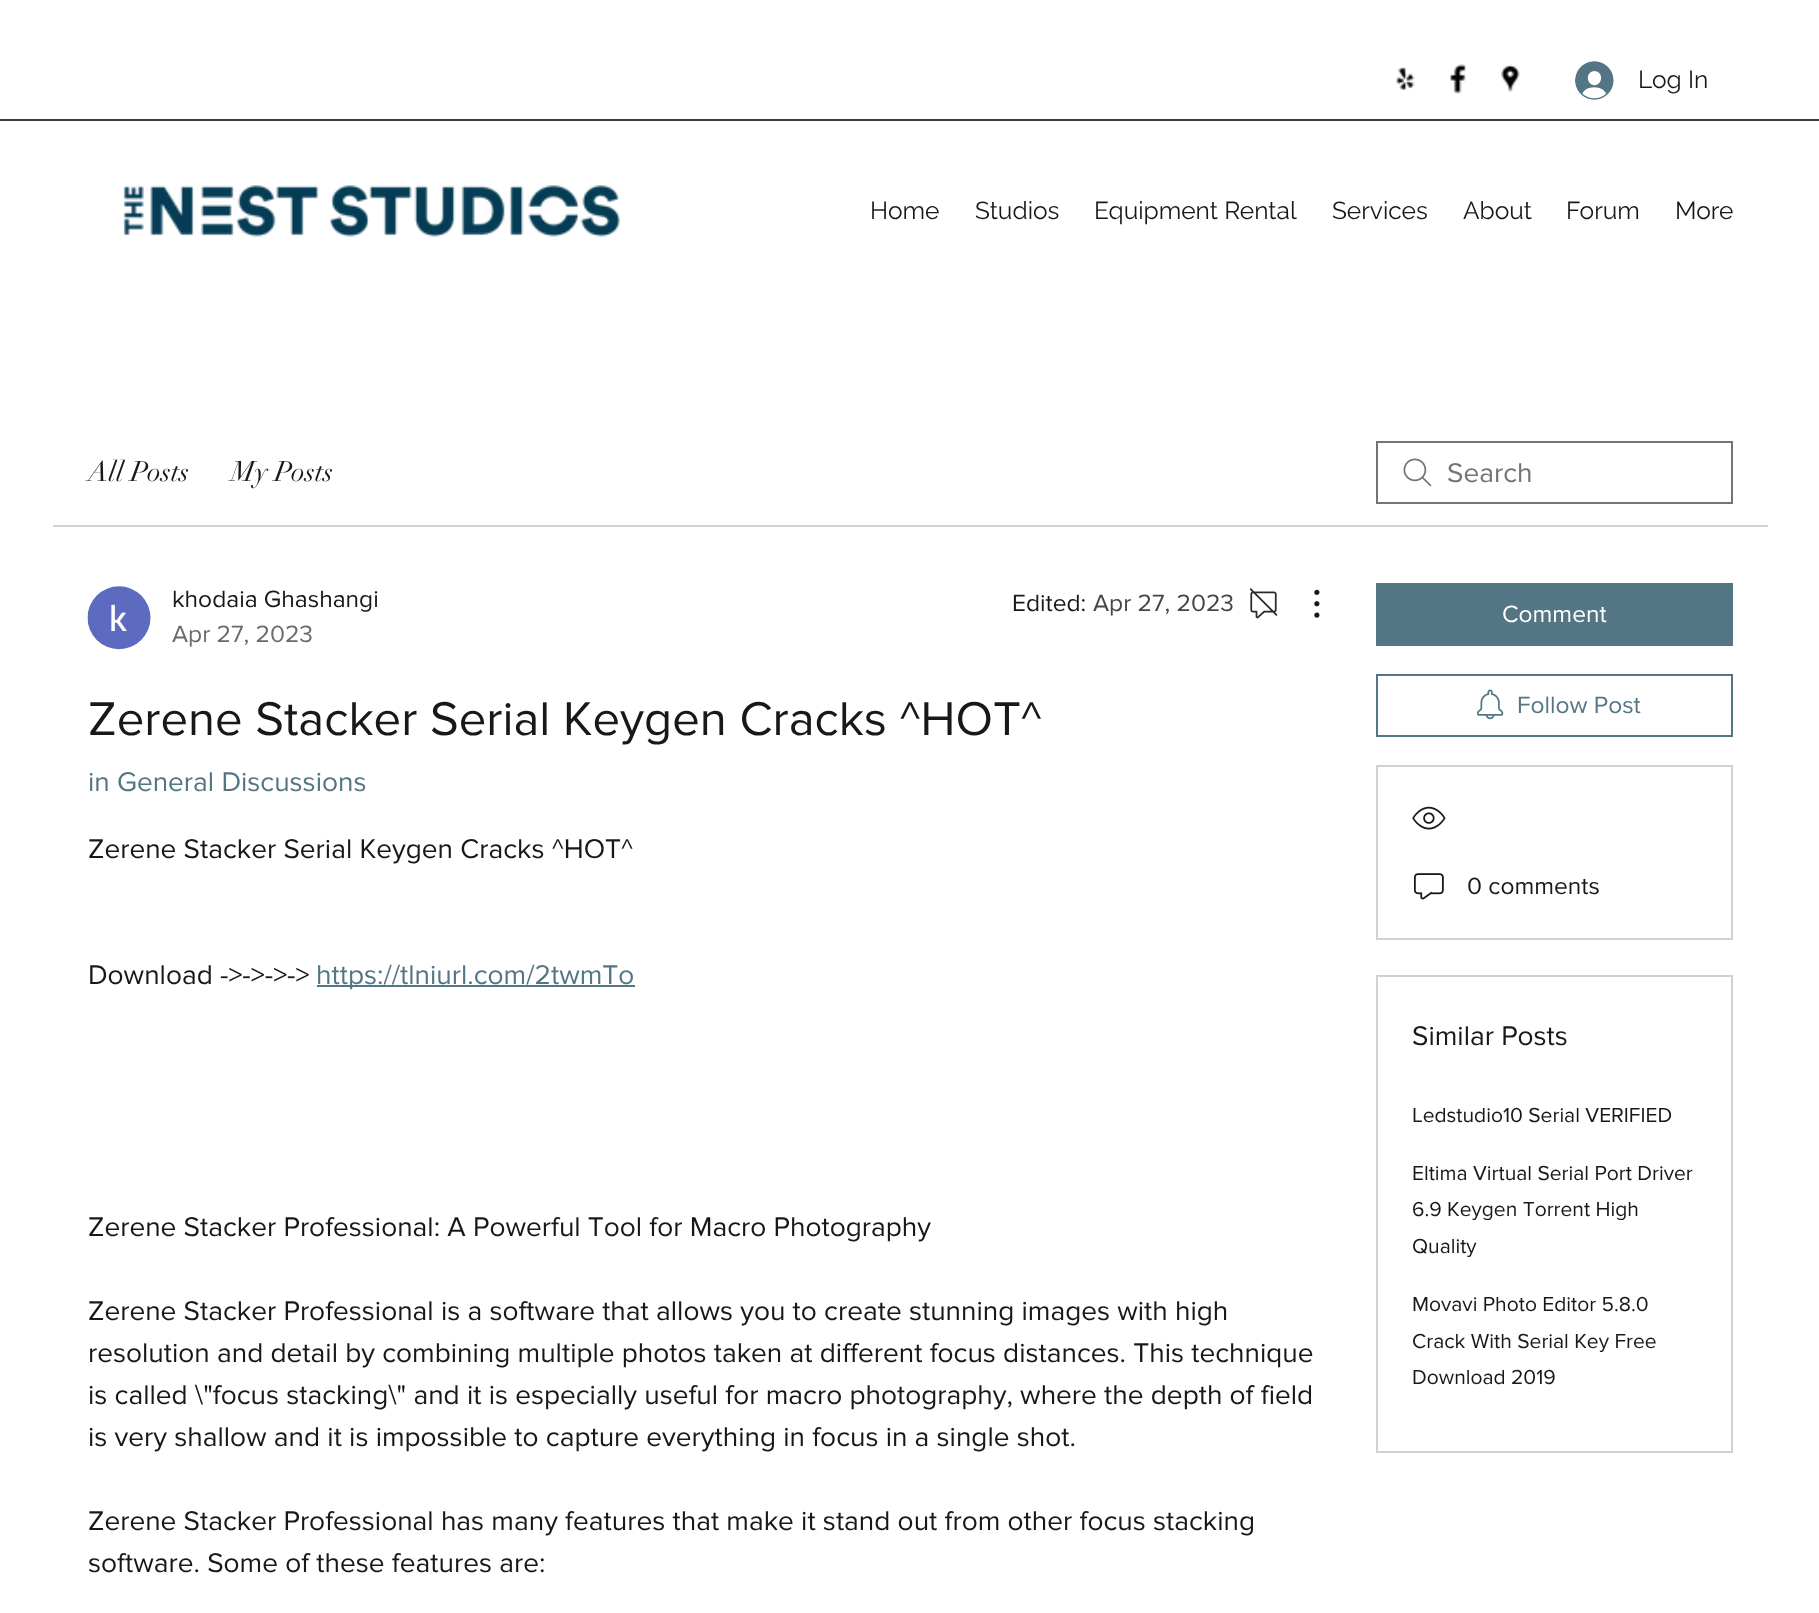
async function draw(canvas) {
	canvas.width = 1819;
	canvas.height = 1613;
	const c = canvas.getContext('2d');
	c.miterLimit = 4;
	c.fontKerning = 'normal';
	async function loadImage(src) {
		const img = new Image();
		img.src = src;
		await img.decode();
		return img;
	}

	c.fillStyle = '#fff';
	c.fillRect(0, 0, 1819, 1613);
	c.drawImage(await loadImage('img1.png'), 1396, 67, 19, 24);
	c.drawImage(await loadImage('img2.png'), 1450, 64, 16, 30);
	c.drawImage(await loadImage('img3.png'), 1501, 64, 19, 28);
	c.drawImage(await loadImage('img4.png'), 1575, 61, 39, 39);
	c.font = '24.5px Raleway';
	c.fillStyle = '#181818';
	c.fillText('Log In', 1638, 88);
	c.fillStyle = '#3b3b3b';
	c.fillRect(0, 119, 1819, 2);
	c.drawImage(await loadImage('img5.png'), 123, 185, 497, 52);
	c.fillStyle = '#181818';
	for (const [text, x, y] of [
		['Home', 870, 219],
		['Studios', 975, 219],
		['Equipment Rental', 1094, 219],
		['Services', 1332, 219],
		['About', 1463, 219],
		['Forum', 1566, 219],
		['More', 1675, 219],
	]) {
		c.fillText(text, x, y);
	}
	c.fillStyle = '#d1d1d1';
	c.fillRect(53, 525, 1715, 2);
	c.font = '28px didot';
	c.fillStyle = '#181818';
	c.fillText('All Posts', 88, 481);
	c.fillText('My Posts', 231, 481);
	c.drawImage(await loadImage('img6.png'), 1403, 458, 29, 29);
	c.strokeStyle = '#747474';
	c.lineWidth = 2;
	c.strokeRect(1377, 442, 355, 61);
	c.font = '28px "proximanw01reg"';
	c.fillStyle = '#747474';
	c.fillText('Search', 1447, 482);
	c.drawImage(await loadImage('img7.png'), 87, 586, 64, 64);
	c.font = '24.5px "proximanw01reg"';
	c.fillStyle = '#181818';
	c.fillText('khodaia Ghashangi', 172, 607);
	c.fillStyle = '#6b6b6b';
	c.fillText('Apr 27, 2023', 172, 642);
	c.fillStyle = '#181818';
	c.fillText('Edited:', 1012, 611);
	c.fillStyle = '#464646';
	c.fillText('Apr 27, 2023', 1093, 611);
	c.drawImage(await loadImage('img8.png'), 1250, 588, 28, 31);
	c.drawImage(await loadImage('img9.png'), 1314, 589, 6, 29);
	c.font = '49px "proximanw01reg"';
	c.fillStyle = '#181818';
	c.fillText('Zerene Stacker Serial Keygen Cracks ^HOT^', 88, 735);
	c.font = '28px "proximanw01reg"';
	c.fillStyle = '#547684';
	c.fillText('in General Discussions', 88, 791);
	c.fillStyle = '#181818';
	c.fillText('Zerene Stacker Serial Keygen Cracks ^HOT^', 88, 858);
	c.fillText('Download ->->->->', 88, 984);
	c.fillStyle = '#547684';
	c.fillRect(317, 985, 318, 2);
	c.fillText('https://tlniurl.com/2twmTo', 316, 984);
	c.fillStyle = '#181818';
	for (const [text, x, y] of [
		['Zerene Stacker Professional: A Powerful Tool for Macro Photography', 88, 1236],
		['Zerene Stacker Professional is a software that allows you to create stunning images with high', 88, 1320],
		['resolution and detail by combining multiple photos taken at different focus distances. This technique', 88, 1362],
		['is called \\"focus stacking\\" and it is especially useful for macro photography, where the depth of field', 88, 1404],
		['is very shallow and it is impossible to capture everything in focus in a single shot.', 88, 1446],
		['Zerene Stacker Professional has many features that make it stand out from other focus stacking', 88, 1530],
		['software. Some of these features are:', 88, 1572],
	]) {
		c.fillText(text, x, y);
	}
	c.fillStyle = '#547684';
	c.fillRect(1376, 583, 357, 63);
	c.font = '24.5px "proximanw01reg"';
	c.fillStyle = '#fff';
	c.fillText('Comment', 1502, 622);
	c.strokeStyle = '#547684';
	c.strokeRect(1377, 675, 355, 61);
	c.drawImage(await loadImage('img10.png'), 1477, 689, 27, 31);
	c.fillStyle = '#547684';
	c.fillText('Follow Post', 1517, 713);
	c.strokeStyle = '#d1d1d1';
	c.strokeRect(1377, 766, 355, 173);
	c.drawImage(await loadImage('img11.png'), 1412, 806, 34, 24);
	c.drawImage(await loadImage('img12.png'), 1414, 873, 30, 27);
	c.fillStyle = '#181818';
	c.fillText('0 comments', 1467, 894);
	c.strokeRect(1377, 976, 355, 476);
	c.font = '28px "proximanw01reg"';
	c.fillText('Similar Posts', 1412, 1045);
	c.font = '21px "proximanw01reg"';
	for (const [text, x, y] of [
		['Ledstudio10 Serial VERIFIED', 1412, 1122],
		['Eltima Virtual Serial Port Driver', 1412, 1180],
		['6.9 Keygen Torrent High', 1412, 1216],
		['Quality', 1412, 1253],
		['Movavi Photo Editor 5.8.0', 1412, 1311],
		['Crack With Serial Key Free', 1412, 1348],
		['Download 2019', 1412, 1384],
	]) {
		c.fillText(text, x, y);
	}
}

draw(document.querySelector('canvas'));
